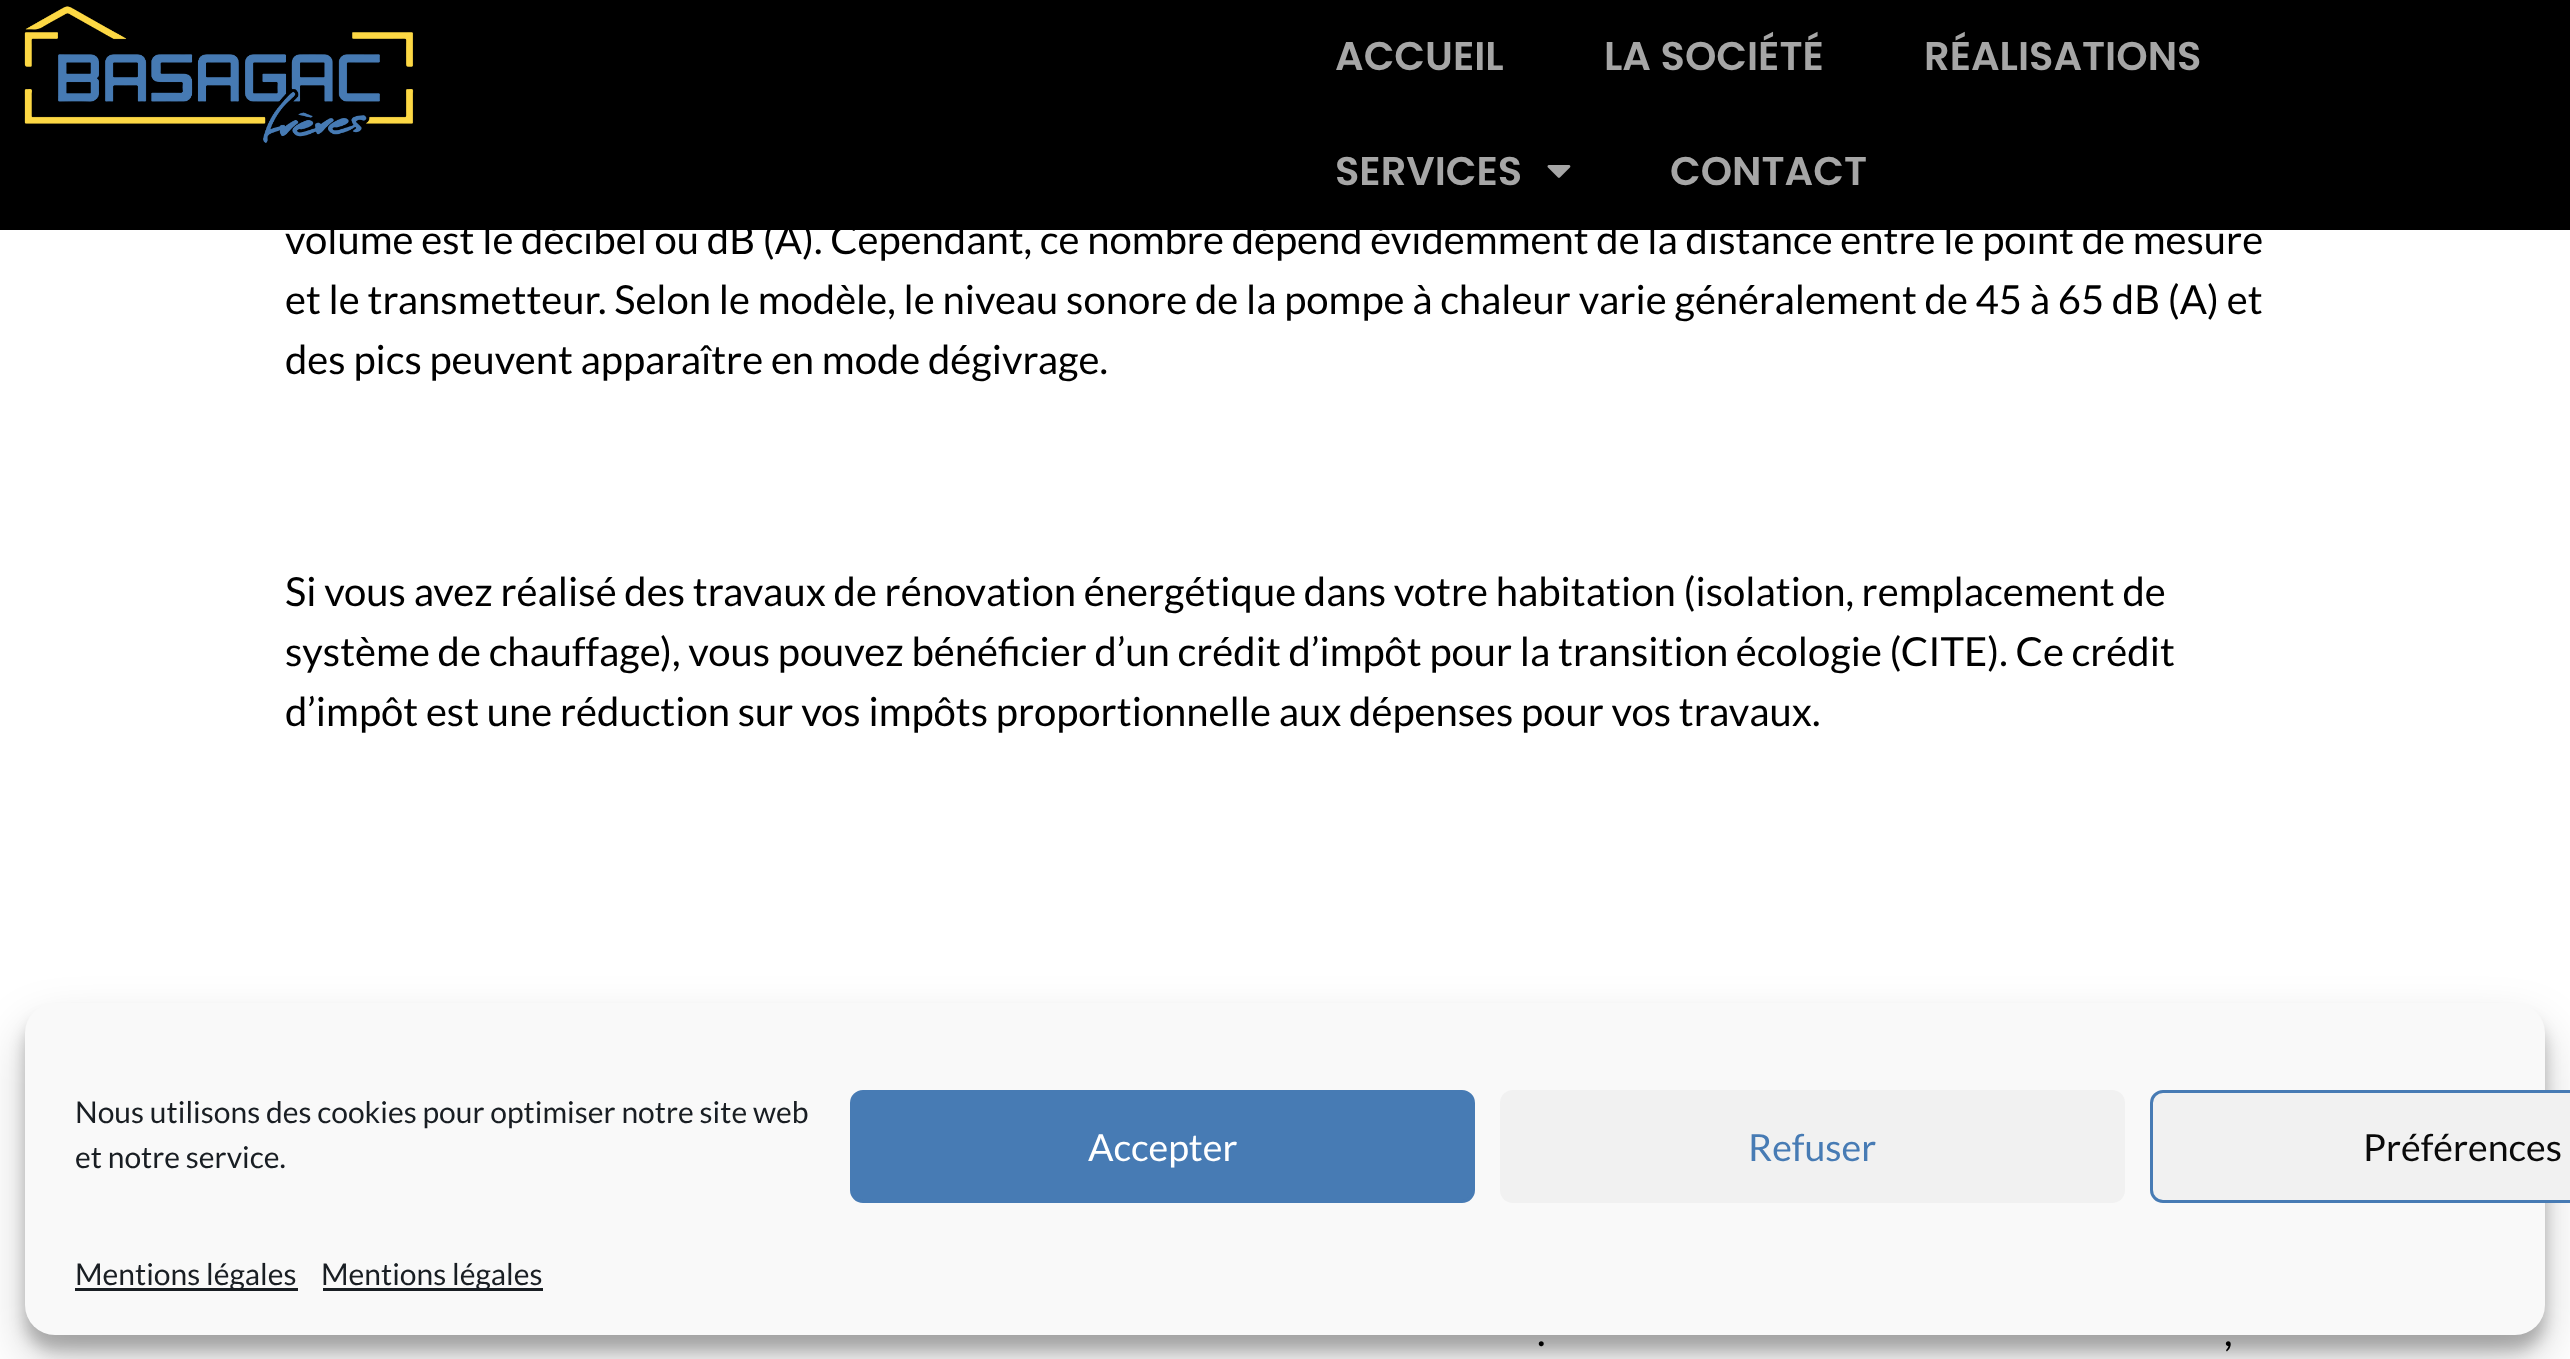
async function draw(canvas) {
	canvas.width = 2570;
	canvas.height = 1359;
	const c = canvas.getContext('2d');
	c.miterLimit = 4;
	c.fontKerning = 'normal';
	async function loadImage(src) {
		const img = new Image();
		img.src = src;
		await img.decode();
		return img;
	}

	c.fillStyle = '#fff';
	c.fillRect(0, 0, 2570, 1359);
	c.fillStyle = '#000';
	c.fillRect(0, 0, 2570, 230);
	c.drawImage(await loadImage('img1.png'), 24, 6, 390, 137);
	c.font = '600 40px Poppins';
	c.fillStyle = '#a6a6a6';
	for (const [text, x, y] of [
		['ACCUEIL', 1335, 70],
		['LA SOCIÉTÉ', 1604, 70],
		['RÉALISATIONS', 1924, 70],
		['SERVICES', 1335, 185],
	]) {
		c.fillText(text, x, y);
	}
	c.drawImage(await loadImage('img2.png'), 1547, 165, 24, 13);
	c.fillText('CONTACT', 1670, 185);
	c.font = '40px Lato';
	c.fillStyle = '#000';
	for (const [text, x, y] of [
		['volume est le décibel ou dB (A). Cependant, ce nombre dépend évidemment de la distance entre le point de mesure', 285, 254],
		['et le transmetteur. Selon le modèle, le niveau sonore de la pompe à chaleur varie généralement de 45 à 65 dB (A) et', 285, 314],
		['des pics peuvent apparaître en mode dégivrage.', 285, 374],
		['Si vous avez réalisé des travaux de rénovation énergétique dans votre habitation (isolation, remplacement de', 285, 606],
		['système de chauffage), vous pouvez bénéficier d’un crédit d’impôt pour la transition écologie (CITE). Ce crédit', 285, 666],
		['d’impôt est une réduction sur vos impôts proportionnelle aux dépenses pour vos travaux.', 285, 726],
		['.', 1537, 1346],
		[',', 2224, 1346],
	]) {
		c.fillText(text, x, y);
	}
	c.fillStyle = '#0000003b';
	c.filter = 'blur(7.5px)';
	c.beginPath();
	c.roundRect(25, 1018, 2520, 332, 30);
	c.fill();
	c.filter = 'none';
	c.fillStyle = '#00000030';
	c.filter = 'blur(25px)';
	c.beginPath();
	c.roundRect(25, 1028, 2520, 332, 30);
	c.fill();
	c.filter = 'none';
	c.fillStyle = '#f9f9f9';
	c.beginPath();
	c.roundRect(25, 1003, 2520, 332, 30);
	c.fill();
	c.font = '30px Lato';
	c.fillStyle = '#191e23';
	c.fillText('Nous utilisons des cookies pour optimiser notre site web', 75, 1123);
	c.fillText('et notre service.', 75, 1168);
	c.fillStyle = '#477bb4';
	c.beginPath();
	c.roundRect(851.5, 1091.5, 622, 110, 11.5);
	c.fill();
	c.strokeStyle = '#477bb4';
	c.lineWidth = 3;
	c.stroke();
	c.font = '37.5px Lato';
	c.fillStyle = '#fff';
	c.fillText('Accepter', 1088, 1161);
	c.fillStyle = '#f1f1f1';
	c.beginPath();
	c.roundRect(1500, 1090, 625, 113, 13);
	c.fill();
	c.fillStyle = '#477bb4';
	c.fillText('Refuser', 1748, 1161);
	c.fillStyle = '#f1f1f1';
	c.beginPath();
	c.roundRect(2151.5, 1091.5, 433, 110, 11.5);
	c.fill();
	c.stroke();
	c.fillStyle = '#0a0a0a';
	c.fillText('Préférences', 2363, 1161);
	c.fillStyle = '#191e23';
	c.fillRect(75, 1288, 223, 3);
	c.font = '30px Lato';
	c.fillText('Mentions légales', 75, 1285);
	c.fillRect(323, 1288, 220, 3);
	c.fillText('Mentions légales', 321, 1285);
}

draw(document.querySelector('canvas'));
